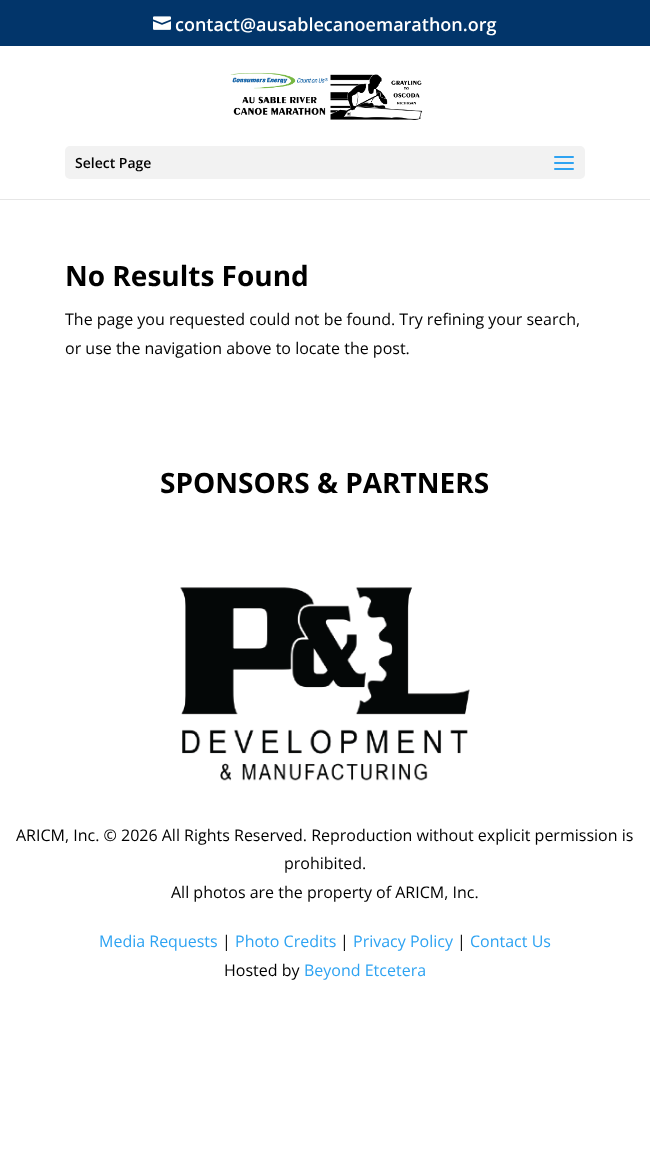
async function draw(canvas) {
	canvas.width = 650;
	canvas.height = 1166;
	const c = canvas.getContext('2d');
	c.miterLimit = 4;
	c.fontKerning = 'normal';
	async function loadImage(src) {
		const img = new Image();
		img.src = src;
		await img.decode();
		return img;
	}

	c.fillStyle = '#fff';
	c.fillRect(0, 0, 650, 1166);
	c.fillStyle = '#02356a';
	c.fillRect(0, 0, 650, 46);
	c.drawImage(await loadImage('img1.png'), 153, 16, 18, 14);
	c.font = '600 18px Open Sans';
	c.fillStyle = '#fff';
	c.fillText('contact@ausablecanoemarathon.org', 175, 31);
	c.fillStyle = '#e6e6e6';
	c.fillRect(0, 199, 650, 1);
	c.drawImage(await loadImage('img2.png'), 230, 72, 193, 48);
	c.fillStyle = '#f2f2f2';
	c.beginPath();
	c.roundRect(65, 146, 520, 33, 5);
	c.fill();
	c.font = '600 14px Open Sans';
	c.fillStyle = '#000';
	c.fillText('Select Page', 75, 168);
	c.drawImage(await loadImage('img3.png'), 554, 156, 20, 14);
	c.font = 'bold 28px Open Sans';
	c.fillText('No Results Found', 65, 286);
	c.font = '16px Open Sans';
	c.fillText('The page you requested could not be found. Try refining your search,', 65, 325);
	c.fillText('or use the navigation above to locate the post.', 65, 354);
	c.font = 'bold 28px Open Sans';
	c.fillText('SPONSORS & PARTNERS', 160, 493);
	c.drawImage(await loadImage('img4.png'), 180, 587, 290, 194);
	c.font = '16px Open Sans';
	for (const [text, x, y] of [
		['ARICM, Inc. © 2026 All Rights Reserved. Reproduction without explicit permission is', 16, 841],
		['prohibited.', 284, 869],
		['All photos are the property of ARICM, Inc.', 171, 898],
	]) {
		c.fillText(text, x, y);
	}
	c.fillStyle = '#2ea3f2';
	c.fillText('Media Requests', 99, 947);
	c.fillStyle = '#000';
	c.fillText('|', 222, 947);
	c.fillStyle = '#2ea3f2';
	c.fillText('Photo Credits', 235, 947);
	c.fillStyle = '#000';
	c.fillText('|', 340, 947);
	c.fillStyle = '#2ea3f2';
	c.fillText('Privacy Policy', 353, 947);
	c.fillStyle = '#000';
	c.fillText('|', 457, 947);
	c.fillStyle = '#2ea3f2';
	c.fillText('Contact Us', 470, 947);
	c.fillStyle = '#000';
	c.fillText('Hosted by', 224, 976);
	c.fillStyle = '#2ea3f2';
	c.fillText('Beyond Etcetera', 304, 976);
}

draw(document.querySelector('canvas'));
